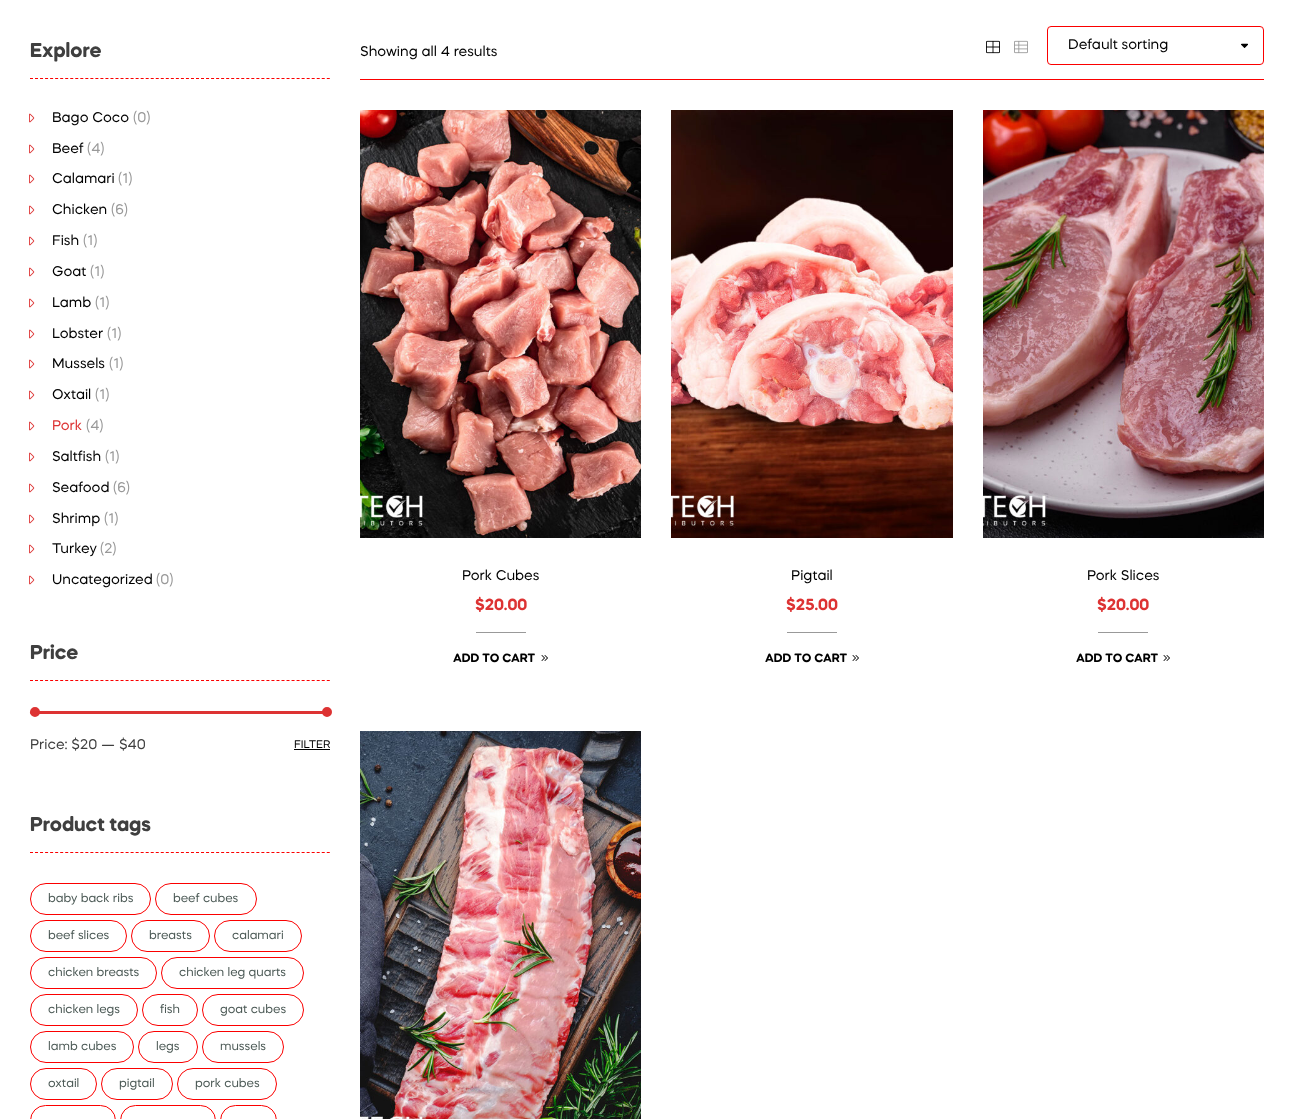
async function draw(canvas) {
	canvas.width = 1294;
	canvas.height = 1119;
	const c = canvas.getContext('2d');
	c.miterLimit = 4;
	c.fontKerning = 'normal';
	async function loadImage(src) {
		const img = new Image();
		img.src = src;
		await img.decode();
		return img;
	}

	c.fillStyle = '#fff';
	c.fillRect(0, 0, 1294, 1119);
	c.beginPath();
	c.moveTo(30, 78.5);
	c.lineTo(330, 78.5);
	c.strokeStyle = '#fb0000';
	c.setLineDash([3, 2.03]);
	c.stroke();
	c.font = 'bold 20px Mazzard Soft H';
	c.fillStyle = '#3f3f3f';
	c.fillText('Explore', 30, 57);
	c.drawImage(await loadImage('img1.png'), 29, 113, 6, 10);
	c.font = '14px Mazzard Soft H';
	c.fillStyle = '#000';
	c.fillText('Bago Coco', 52, 122);
	c.fillStyle = '#999';
	c.fillText('(0)', 133, 122);
	c.drawImage(await loadImage('img1.png'), 29, 144, 6, 10);
	c.fillStyle = '#000';
	c.fillText('Beef', 52, 153);
	c.fillStyle = '#999';
	c.fillText('(4)', 87, 153);
	c.drawImage(await loadImage('img1.png'), 29, 174, 6, 10);
	c.fillStyle = '#000';
	c.fillText('Calamari', 52, 183);
	c.fillStyle = '#999';
	c.fillText('(1)', 118, 183);
	c.drawImage(await loadImage('img1.png'), 29, 205, 6, 10);
	c.fillStyle = '#000';
	c.fillText('Chicken', 52, 214);
	c.fillStyle = '#999';
	c.fillText('(6)', 111, 214);
	c.drawImage(await loadImage('img1.png'), 29, 236, 6, 10);
	c.fillStyle = '#000';
	c.fillText('Fish', 52, 245);
	c.fillStyle = '#999';
	c.fillText('(1)', 83, 245);
	c.drawImage(await loadImage('img1.png'), 29, 267, 6, 10);
	c.fillStyle = '#000';
	c.fillText('Goat', 52, 276);
	c.fillStyle = '#999';
	c.fillText('(1)', 90, 276);
	c.drawImage(await loadImage('img1.png'), 29, 298, 6, 10);
	c.fillStyle = '#000';
	c.fillText('Lamb', 52, 307);
	c.fillStyle = '#999';
	c.fillText('(1)', 95, 307);
	c.drawImage(await loadImage('img1.png'), 29, 329, 6, 10);
	c.fillStyle = '#000';
	c.fillText('Lobster', 52, 338);
	c.fillStyle = '#999';
	c.fillText('(1)', 107, 338);
	c.drawImage(await loadImage('img1.png'), 29, 359, 6, 10);
	c.fillStyle = '#000';
	c.fillText('Mussels', 52, 368);
	c.fillStyle = '#999';
	c.fillText('(1)', 109, 368);
	c.drawImage(await loadImage('img1.png'), 29, 390, 6, 10);
	c.fillStyle = '#000';
	c.fillText('Oxtail', 52, 399);
	c.fillStyle = '#999';
	c.fillText('(1)', 95, 399);
	c.drawImage(await loadImage('img1.png'), 29, 421, 6, 10);
	c.fillStyle = '#d33';
	c.fillText('Pork', 52, 430);
	c.fillStyle = '#999';
	c.fillText('(4)', 86, 430);
	c.drawImage(await loadImage('img1.png'), 29, 452, 6, 10);
	c.fillStyle = '#000';
	c.fillText('Saltfish', 52, 461);
	c.fillStyle = '#999';
	c.fillText('(1)', 105, 461);
	c.drawImage(await loadImage('img1.png'), 29, 483, 6, 10);
	c.fillStyle = '#000';
	c.fillText('Seafood', 52, 492);
	c.fillStyle = '#999';
	c.fillText('(6)', 113, 492);
	c.drawImage(await loadImage('img1.png'), 29, 514, 6, 10);
	c.fillStyle = '#000';
	c.fillText('Shrimp', 52, 523);
	c.fillStyle = '#999';
	c.fillText('(1)', 104, 523);
	c.drawImage(await loadImage('img1.png'), 29, 544, 6, 10);
	c.fillStyle = '#000';
	c.fillText('Turkey', 52, 553);
	c.fillStyle = '#999';
	c.fillText('(2)', 100, 553);
	c.drawImage(await loadImage('img1.png'), 29, 575, 6, 10);
	c.fillStyle = '#000';
	c.fillText('Uncategorized', 52, 584);
	c.fillStyle = '#999';
	c.fillText('(0)', 156, 584);
	c.beginPath();
	c.moveTo(30, 680.5);
	c.lineTo(330, 680.5);
	c.stroke();
	c.font = 'bold 20px Mazzard Soft H';
	c.fillStyle = '#3f3f3f';
	c.fillText('Price', 30, 659);
	c.fillStyle = '#d33';
	c.beginPath();
	c.roundRect(30, 711, 300, 3, 1.5);
	c.fill();
	c.beginPath();
	c.arc(35, 712, 4, 0, 2 * Math.PI);
	c.fill();
	c.strokeStyle = '#d33';
	c.lineWidth = 2;
	c.setLineDash([]);
	c.stroke();
	c.beginPath();
	c.arc(327, 712, 4, 0, 2 * Math.PI);
	c.fill();
	c.stroke();
	c.font = '14px Mazzard Soft H';
	c.fillStyle = '#3f3f3f';
	c.fillText('Price: $20 — $40', 30, 749);
	c.font = '11px Mazzard Soft H';
	c.fillStyle = '#000';
	c.fillText('FILTER', 294, 748);
	c.fillRect(294, 749, 36, 1);
	c.beginPath();
	c.moveTo(30, 852.5);
	c.lineTo(330, 852.5);
	c.strokeStyle = '#fb0000';
	c.lineWidth = 1;
	c.setLineDash([3, 2.03]);
	c.stroke();
	c.font = 'bold 20px Mazzard Soft H';
	c.fillStyle = '#3f3f3f';
	c.fillText('Product tags', 30, 831);
	c.beginPath();
	c.roundRect(30.5, 883.5, 120, 31, 15.5);
	c.setLineDash([]);
	c.stroke();
	c.font = '12px Mazzard Soft H';
	c.fillStyle = '#4b5955';
	c.fillText('baby back ribs', 48, 902);
	c.beginPath();
	c.roundRect(155.5, 883.5, 101, 31, 15.5);
	c.stroke();
	c.fillText('beef cubes', 173, 902);
	c.beginPath();
	c.roundRect(30.5, 920.5, 96, 31, 15.5);
	c.stroke();
	c.fillText('beef slices', 48, 939);
	c.beginPath();
	c.roundRect(131.5, 920.5, 78, 31, 15.5);
	c.stroke();
	c.fillText('breasts', 149, 939);
	c.beginPath();
	c.roundRect(214.5, 920.5, 87, 31, 15.5);
	c.stroke();
	c.fillText('calamari', 232, 939);
	c.beginPath();
	c.roundRect(30.5, 957.5, 126, 31, 15.5);
	c.stroke();
	c.fillText('chicken breasts', 48, 976);
	c.beginPath();
	c.roundRect(161.5, 957.5, 142, 31, 15.5);
	c.stroke();
	c.fillText('chicken leg quarts', 179, 976);
	c.beginPath();
	c.roundRect(30.5, 994.5, 107, 31, 15.5);
	c.stroke();
	c.fillText('chicken legs', 48, 1013);
	c.beginPath();
	c.roundRect(142.5, 994.5, 55, 31, 15.5);
	c.stroke();
	c.fillText('fish', 160, 1013);
	c.beginPath();
	c.roundRect(202.5, 994.5, 101, 31, 15.5);
	c.stroke();
	c.fillText('goat cubes', 220, 1013);
	c.beginPath();
	c.roundRect(30.5, 1031.5, 103, 31, 15.5);
	c.stroke();
	c.fillText('lamb cubes', 48, 1050);
	c.beginPath();
	c.roundRect(138.5, 1031.5, 59, 31, 15.5);
	c.stroke();
	c.fillText('legs', 156, 1050);
	c.beginPath();
	c.roundRect(202.5, 1031.5, 81, 31, 15.5);
	c.stroke();
	c.fillText('mussels', 220, 1050);
	c.beginPath();
	c.roundRect(30.5, 1068.5, 66, 31, 15.5);
	c.stroke();
	c.fillText('oxtail', 48, 1087);
	c.beginPath();
	c.roundRect(101.5, 1068.5, 71, 31, 15.5);
	c.stroke();
	c.fillText('pigtail', 119, 1087);
	c.beginPath();
	c.roundRect(177.5, 1068.5, 99, 31, 15.5);
	c.stroke();
	c.fillText('pork cubes', 195, 1087);
	c.beginPath();
	c.roundRect(30.5, 1105.5, 85, 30, 15.5);
	c.stroke();
	c.beginPath();
	c.roundRect(120.5, 1105.5, 95, 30, 15.5);
	c.stroke();
	c.beginPath();
	c.roundRect(220.5, 1105.5, 56, 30, 15.5);
	c.stroke();
	c.fillStyle = '#fb0000';
	c.fillRect(360, 79, 904, 1);
	c.font = '14px Mazzard Soft H';
	c.fillStyle = '#000';
	c.fillText('Showing all 4 results', 360, 56);
	c.drawImage(await loadImage('img2.png'), 986, 40, 14, 14);
	c.drawImage(await loadImage('img3.png'), 1014, 40, 14, 14);
	c.drawImage(await loadImage('img4.png'), 1241, 43, 7, 5);
	c.beginPath();
	c.roundRect(1047.5, 26.5, 216, 38, 3.5);
	c.stroke();
	c.fillText('Default sorting', 1068, 49);
	c.drawImage(await loadImage('img5.png'), 360, 110, 281, 428);
	c.fillText('Pork Cubes', 462, 580);
	c.font = 'bold 16px Mazzard Soft H';
	c.fillStyle = '#d33';
	c.fillText('$20.00', 475, 610);
	c.fillStyle = '#999';
	c.fillRect(476, 632, 50, 1);
	c.font = 'bold 12px Mazzard Soft H';
	c.fillStyle = '#000';
	c.fillText('ADD TO CART', 453, 662);
	c.drawImage(await loadImage('img6.png'), 541, 655, 7, 6);
	c.drawImage(await loadImage('img7.png'), 671, 110, 282, 428);
	c.font = '14px Mazzard Soft H';
	c.fillText('Pigtail', 791, 580);
	c.font = 'bold 16px Mazzard Soft H';
	c.fillStyle = '#d33';
	c.fillText('$25.00', 786, 610);
	c.fillStyle = '#999';
	c.fillRect(787, 632, 50, 1);
	c.font = 'bold 12px Mazzard Soft H';
	c.fillStyle = '#000';
	c.fillText('ADD TO CART', 765, 662);
	c.drawImage(await loadImage('img6.png'), 852, 655, 7, 6);
	c.drawImage(await loadImage('img8.png'), 983, 110, 281, 428);
	c.font = '14px Mazzard Soft H';
	c.fillText('Pork Slices', 1087, 580);
	c.font = 'bold 16px Mazzard Soft H';
	c.fillStyle = '#d33';
	c.fillText('$20.00', 1097, 610);
	c.fillStyle = '#999';
	c.fillRect(1098, 632, 50, 1);
	c.font = 'bold 12px Mazzard Soft H';
	c.fillStyle = '#000';
	c.fillText('ADD TO CART', 1076, 662);
	c.drawImage(await loadImage('img6.png'), 1163, 655, 7, 6);
	c.drawImage(await loadImage('img9.png'), 360, 731, 281, 388);
}

draw(document.querySelector('canvas'));
